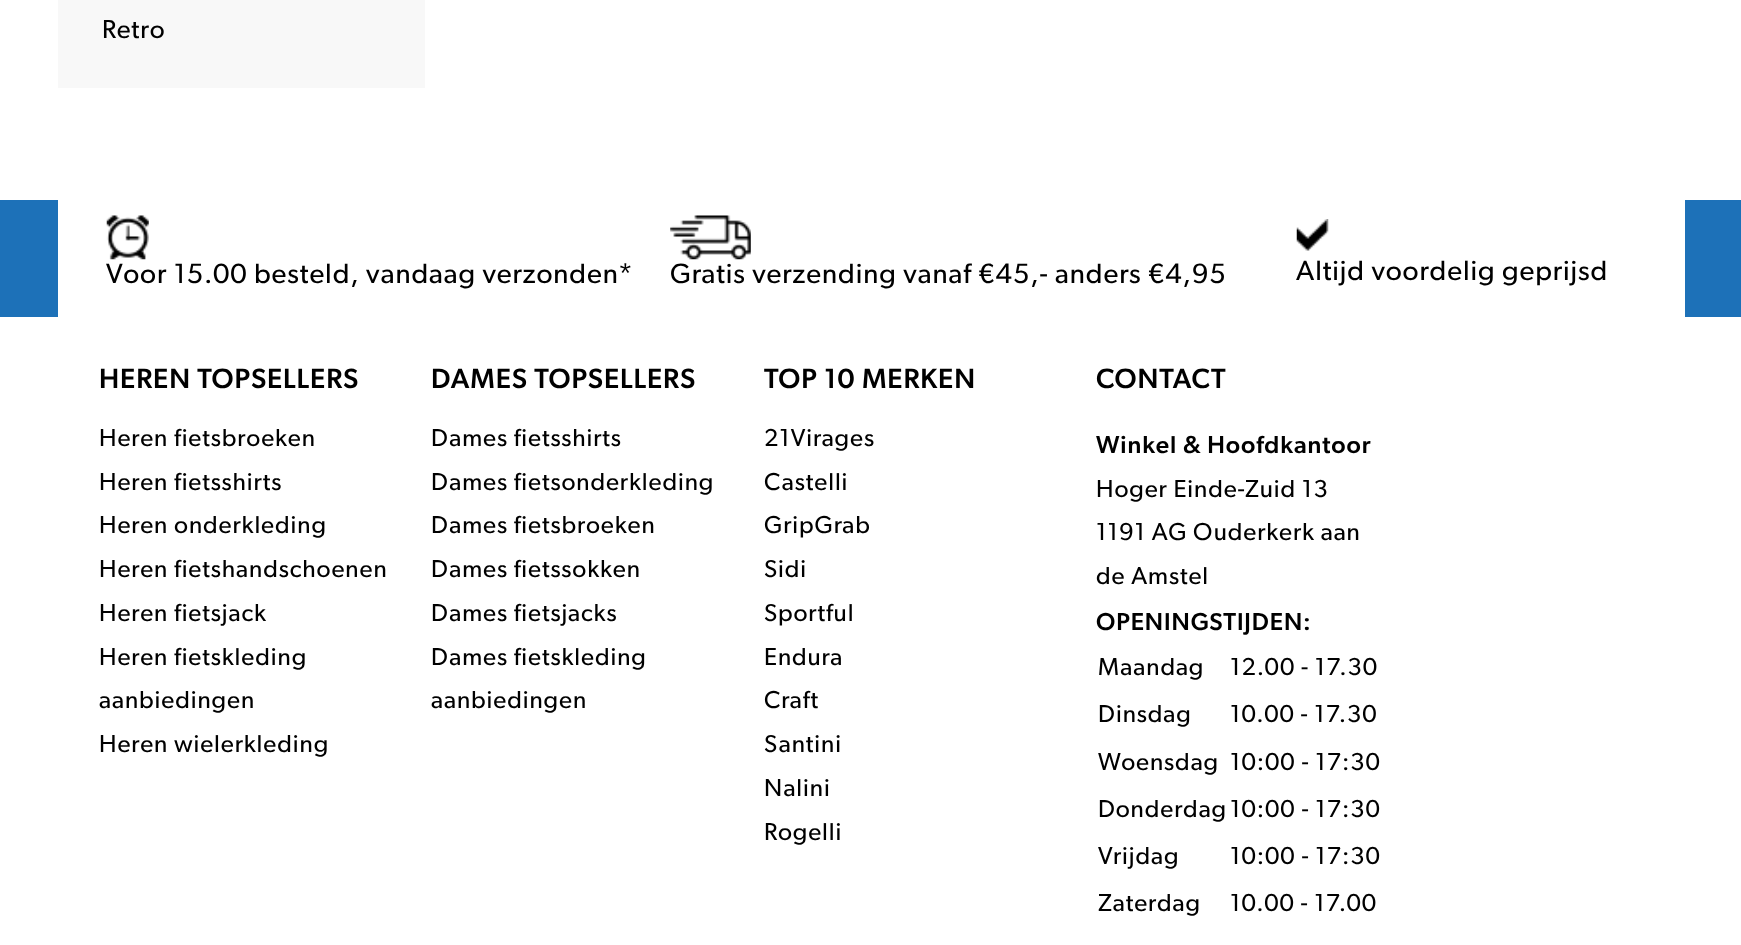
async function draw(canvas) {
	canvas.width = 1741;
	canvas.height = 945;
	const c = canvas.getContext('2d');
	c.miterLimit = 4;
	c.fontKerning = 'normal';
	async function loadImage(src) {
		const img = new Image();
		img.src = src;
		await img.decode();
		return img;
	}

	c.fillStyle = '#fff';
	c.fillRect(0, 0, 1741, 945);
	c.fillStyle = '#f8f8f8';
	c.fillRect(58, 0, 367, 88);
	c.letterSpacing = '0.9px';
	c.font = '26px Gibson';
	c.fillStyle = '#000';
	c.fillText('Retro', 102, 38);
	c.fillStyle = '#1d71b8';
	c.fillRect(0, 200, 1741, 117);
	c.fillStyle = '#fff';
	c.fillRect(58, 200, 1627, 117);
	c.drawImage(await loadImage('img1.png'), 106, 215, 43, 45);
	c.font = '28px Gibson';
	c.fillStyle = '#000';
	c.fillText('Voor 15.00 besteld, vandaag verzonden*', 106, 283);
	c.drawImage(await loadImage('img2.png'), 670, 215, 81, 45);
	c.fillText('Gratis verzending vanaf €45,- anders €4,95', 670, 283);
	c.drawImage(await loadImage('img3.png'), 1296, 219, 33, 32);
	c.fillText('Altijd voordelig geprijsd', 1296, 280);
	c.font = '500 28px Gibson';
	c.fillText('HEREN TOPSELLERS', 99, 388);
	c.font = '24.5px Gibson';
	for (const [text, x, y] of [
		['Heren fietsbroeken', 99, 446],
		['Heren fietsshirts', 99, 490],
		['Heren onderkleding', 99, 533],
		['Heren fietshandschoenen', 99, 577],
		['Heren fietsjack', 99, 621],
		['Heren fietskleding', 99, 665],
		['aanbiedingen', 99, 708],
		['Heren wielerkleding', 99, 752],
	]) {
		c.fillText(text, x, y);
	}
	c.font = '500 28px Gibson';
	c.fillText('DAMES TOPSELLERS', 431, 388);
	c.font = '24.5px Gibson';
	for (const [text, x, y] of [
		['Dames fietsshirts', 431, 446],
		['Dames fietsonderkleding', 431, 490],
		['Dames fietsbroeken', 431, 533],
		['Dames fietssokken', 431, 577],
		['Dames fietsjacks', 431, 621],
		['Dames fietskleding', 431, 665],
		['aanbiedingen', 431, 708],
	]) {
		c.fillText(text, x, y);
	}
	c.font = '500 28px Gibson';
	c.fillText('TOP 10 MERKEN', 764, 388);
	c.font = '24.5px Gibson';
	for (const [text, x, y] of [
		['21Virages', 764, 446],
		['Castelli', 764, 490],
		['GripGrab', 764, 533],
		['Sidi', 764, 577],
		['Sportful', 764, 621],
		['Endura', 764, 665],
		['Craft', 764, 708],
		['Santini', 764, 752],
		['Nalini', 764, 796],
		['Rogelli', 764, 840],
	]) {
		c.fillText(text, x, y);
	}
	c.font = '500 28px Gibson';
	c.fillText('CONTACT', 1096, 388);
	c.font = '500 24.5px Gibson';
	c.fillText('Winkel & Hoofdkantoor', 1096, 453);
	c.font = '24.5px Gibson';
	for (const [text, x, y] of [
		['Hoger Einde-Zuid 13', 1096, 497],
		['1191 AG Ouderkerk aan', 1096, 540],
		['de Amstel', 1096, 584],
	]) {
		c.fillText(text, x, y);
	}
	c.font = '500 24.5px Gibson';
	c.fillText('OPENINGSTIJDEN:', 1096, 630);
	c.font = '24.5px Gibson';
	for (const [text, x, y] of [
		['Maandag', 1098, 675],
		['12.00 - 17.30', 1230, 675],
		['Dinsdag', 1098, 722],
		['10.00 - 17.30', 1230, 722],
		['Woensdag', 1098, 770],
		['10:00 - 17:30', 1230, 770],
		['Donderdag', 1098, 817],
		['10:00 - 17:30', 1230, 817],
		['Vrijdag', 1098, 864],
		['10:00 - 17:30', 1230, 864],
		['Zaterdag', 1098, 911],
		['10.00 - 17.00', 1230, 911],
	]) {
		c.fillText(text, x, y);
	}
}

draw(document.querySelector('canvas'));
